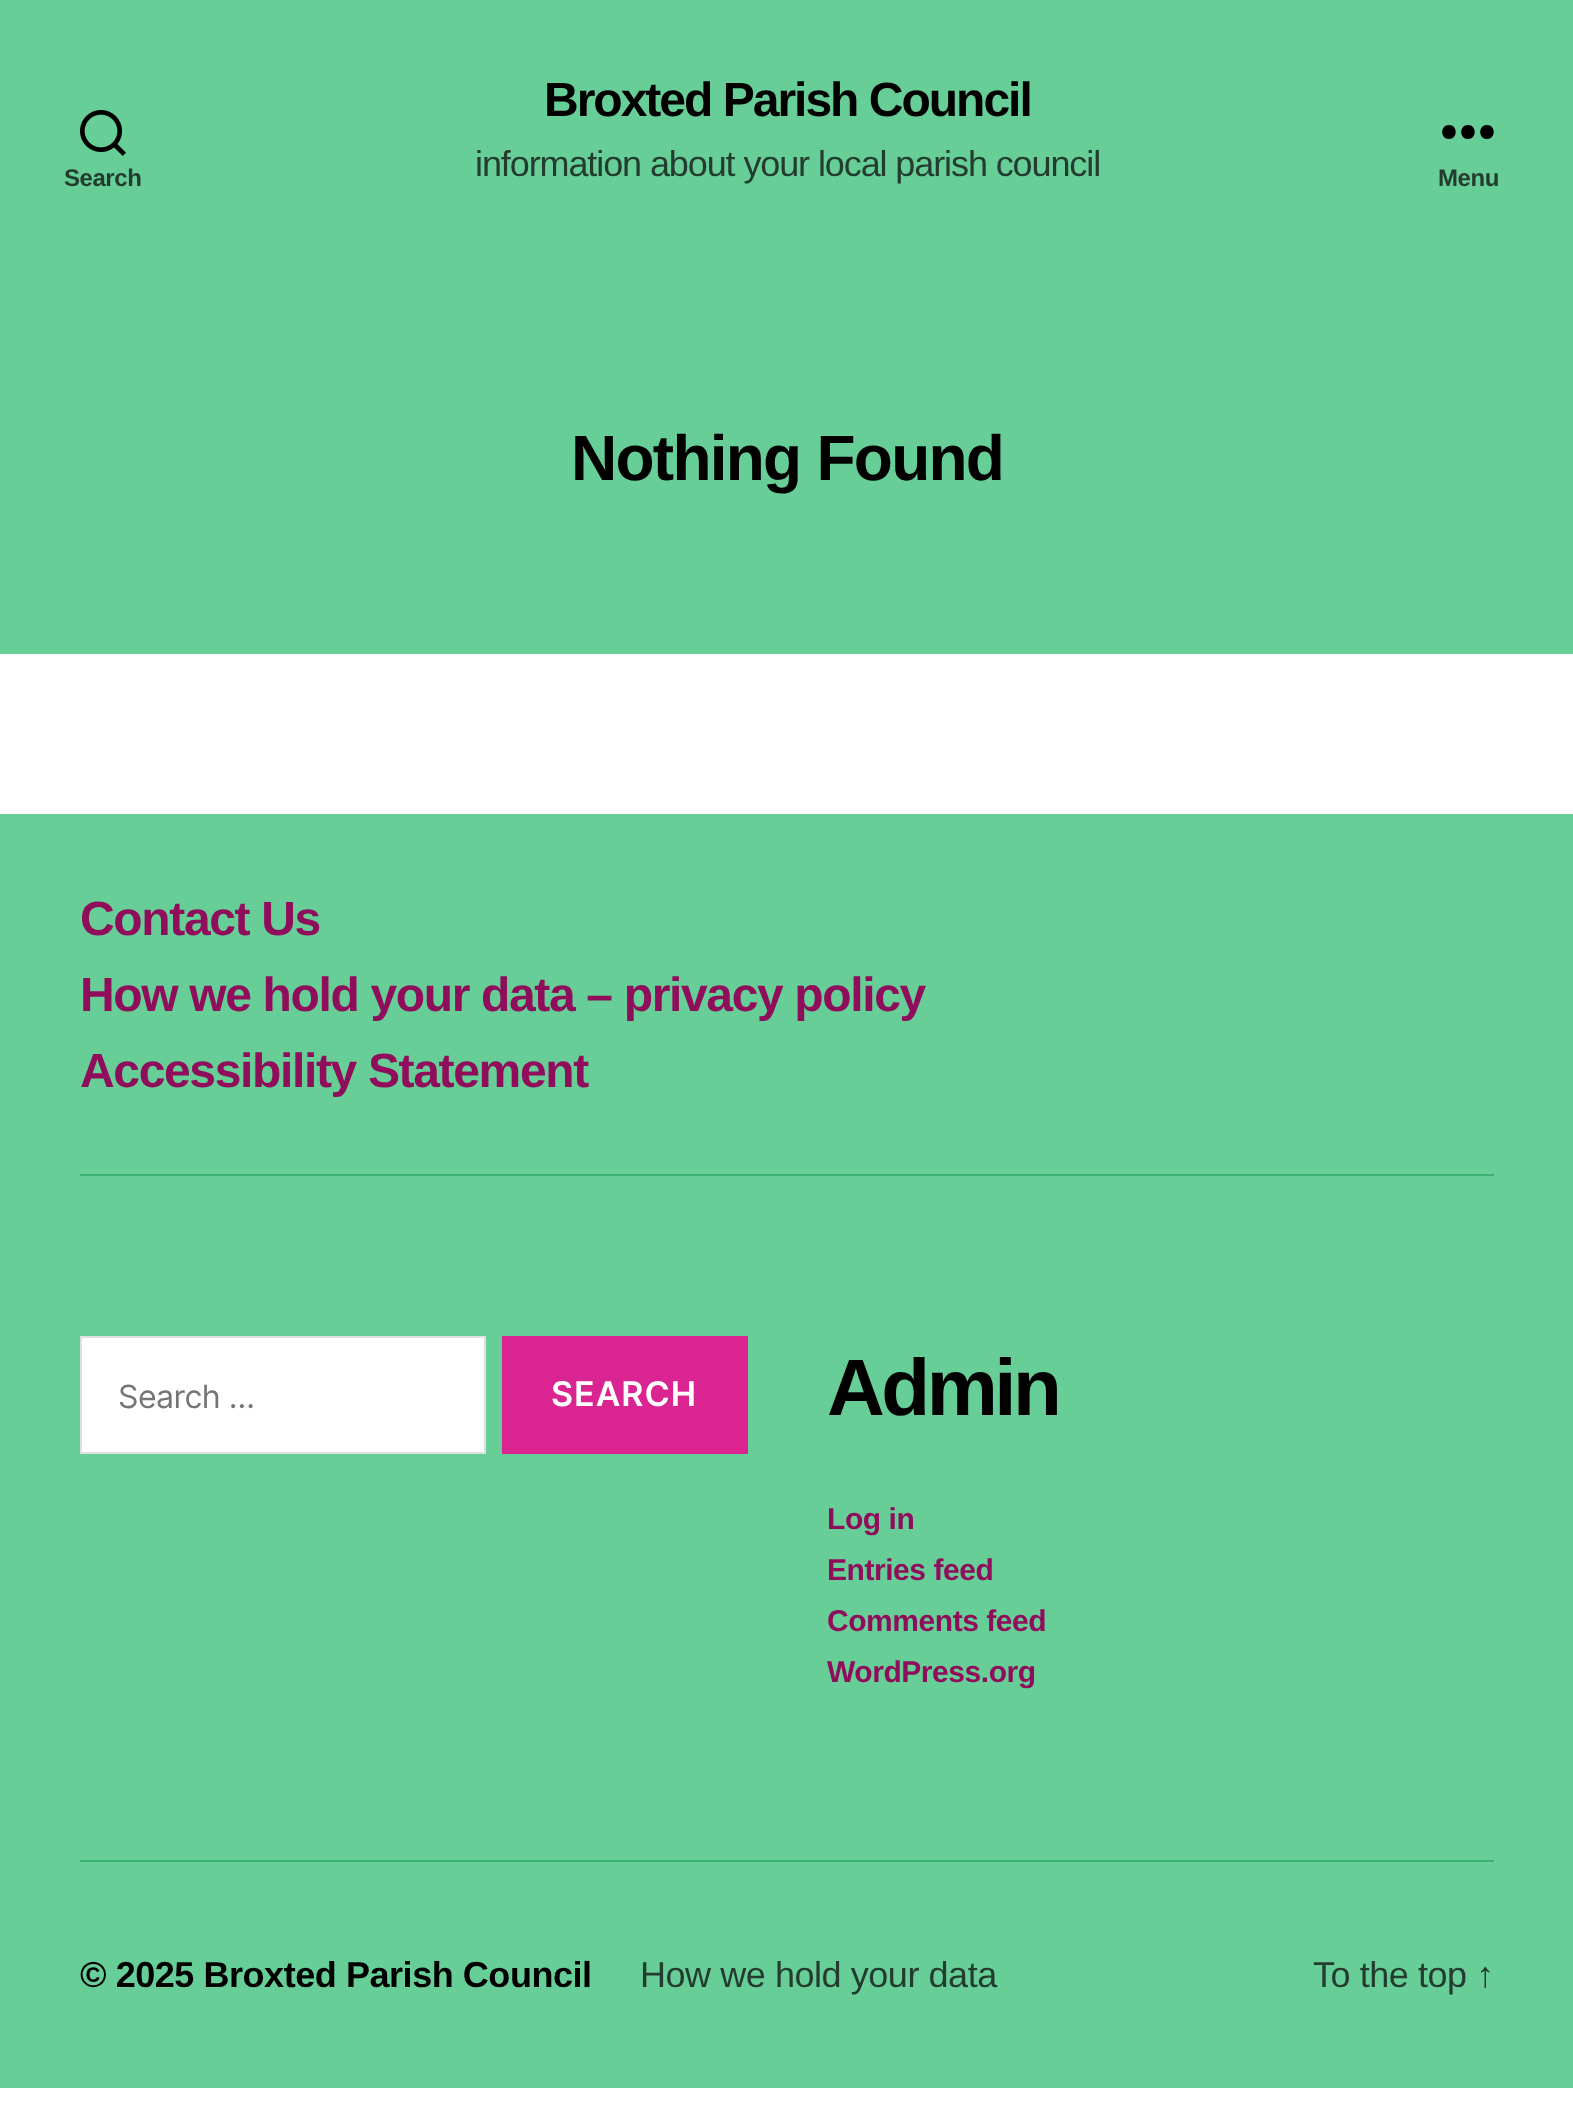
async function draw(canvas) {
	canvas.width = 1573;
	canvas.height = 2101;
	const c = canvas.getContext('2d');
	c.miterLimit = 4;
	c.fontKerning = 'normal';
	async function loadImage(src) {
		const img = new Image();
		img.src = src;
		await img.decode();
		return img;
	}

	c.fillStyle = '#fff';
	c.fillRect(0, 0, 1573, 2101);
	c.fillStyle = '#67ce97';
	c.fillRect(0, 0, 1573, 654);
	c.drawImage(await loadImage('img1.png'), 80, 110, 46, 46);
	c.letterSpacing = '-0.45px';
	c.font = 'bold 24px Liberation Sans';
	c.fillStyle = '#243c2f';
	c.fillText('Search', 64, 186);
	c.letterSpacing = '-2px';
	c.font = 'bold 48px Liberation Sans';
	c.fillStyle = '#000';
	c.fillText('Broxted Parish Council', 544, 116);
	c.letterSpacing = '-1.1px';
	c.font = '36px Liberation Sans';
	c.fillStyle = '#243c2f';
	c.fillText('information about your local parish council', 475, 176);
	c.fillStyle = '#000';
	c.beginPath();
	c.moveTo(1449, 139);
	c.bezierCurveTo(1440, 139, 1440, 125, 1449, 125);
	c.bezierCurveTo(1458, 125, 1458, 139, 1449, 139);
	c.closePath();
	c.moveTo(1468, 139);
	c.bezierCurveTo(1459, 139, 1459, 125, 1468, 125);
	c.bezierCurveTo(1477, 125, 1477, 139, 1468, 139);
	c.closePath();
	c.moveTo(1487, 139);
	c.bezierCurveTo(1478, 139, 1478, 125, 1487, 125);
	c.bezierCurveTo(1496, 125, 1496, 139, 1487, 139);
	c.closePath();
	c.fill('evenodd');
	c.letterSpacing = '-0.45px';
	c.font = 'bold 24px Liberation Sans';
	c.fillStyle = '#243c2f';
	c.fillText('Menu', 1438, 186);
	c.letterSpacing = '-1.75px';
	c.font = 'bold 64px Liberation Sans';
	c.fillStyle = '#000';
	c.fillText('Nothing Found', 571, 480);
	c.fillStyle = '#67ce97';
	c.fillRect(0, 814, 1573, 1274);
	c.fillStyle = '#3bb373';
	c.fillRect(80, 1174, 1414, 2);
	c.letterSpacing = '-1.35px';
	c.font = 'bold 48px Liberation Sans';
	c.fillStyle = '#900d5c';
	for (const [text, x, y] of [
		['Contact Us', 80, 935],
		['How we hold your data – privacy policy', 80, 1011],
		['Accessibility Statement', 80, 1087],
	]) {
		c.fillText(text, x, y);
	}
	c.fillStyle = '#3bb373';
	c.fillRect(80, 1860, 1414, 2);
	c.fillStyle = '#fff';
	c.beginPath();
	c.rect(81, 1337, 404, 116);
	c.fill();
	c.strokeStyle = '#dedfdf';
	c.lineWidth = 2;
	c.stroke();
	c.letterSpacing = '-0.5px';
	c.font = '32px Inter';
	c.fillStyle = '#757575';
	c.fillText('Search …', 118, 1408);
	c.fillStyle = '#da2491';
	c.fillRect(502, 1336, 246, 118);
	c.letterSpacing = '1px';
	c.font = '600 34px Inter';
	c.fillStyle = '#fff';
	c.fillText('SEARCH', 551, 1406);
	c.letterSpacing = '-3.5px';
	c.font = 'bold 80px Liberation Sans';
	c.fillStyle = '#000';
	c.fillText('Admin', 827, 1415);
	c.letterSpacing = '-0.45px';
	c.font = 'bold 30px Liberation Sans';
	c.fillStyle = '#900d5c';
	for (const [text, x, y] of [
		['Log in', 827, 1529],
		['Entries feed', 827, 1580],
		['Comments feed', 827, 1631],
		['WordPress.org', 827, 1682],
	]) {
		c.fillText(text, x, y);
	}
	c.font = 'bold 36px Liberation Sans';
	c.fillStyle = '#000';
	c.fillText('© 2025 Broxted Parish Council', 80, 1987);
	c.font = '36px Liberation Sans';
	c.fillStyle = '#243c2f';
	c.fillText('How we hold your data', 640, 1987);
	c.fillText('To the top ↑', 1313, 1987);
}

draw(document.querySelector('canvas'));
